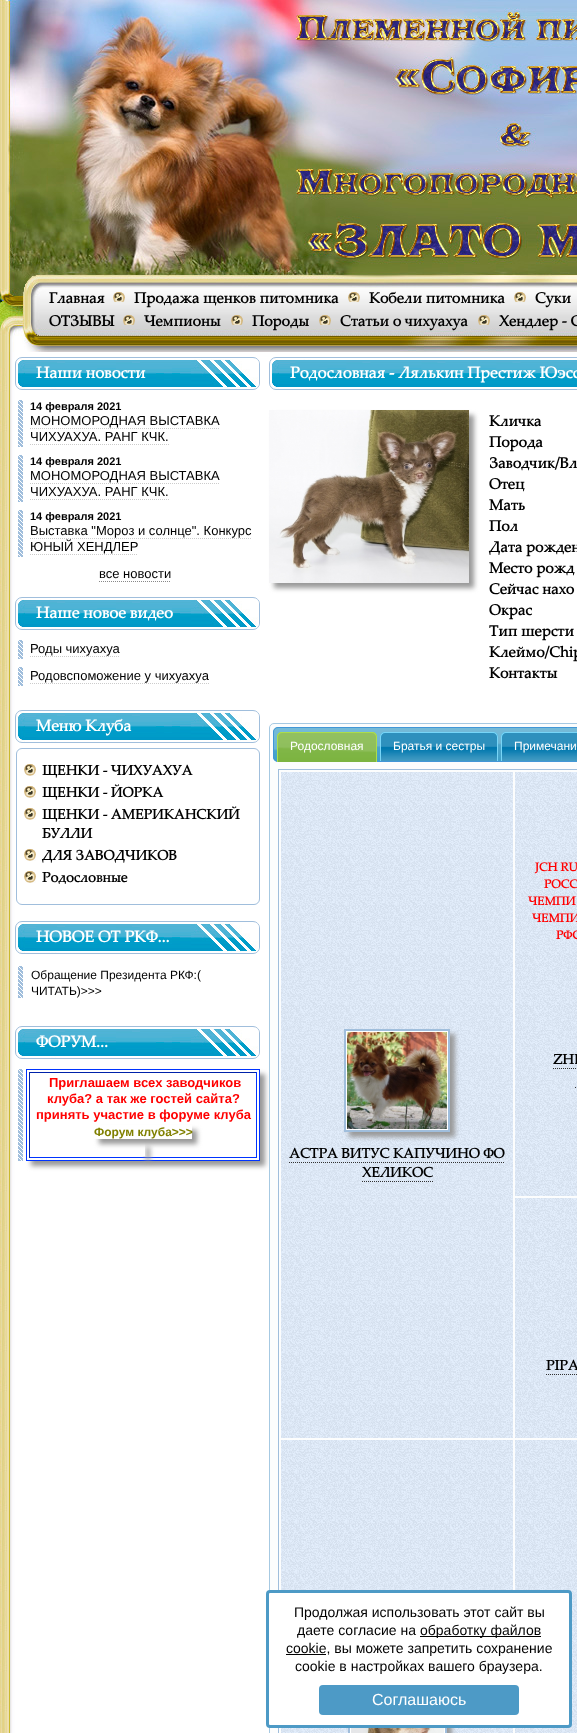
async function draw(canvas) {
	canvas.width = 577;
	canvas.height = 1733;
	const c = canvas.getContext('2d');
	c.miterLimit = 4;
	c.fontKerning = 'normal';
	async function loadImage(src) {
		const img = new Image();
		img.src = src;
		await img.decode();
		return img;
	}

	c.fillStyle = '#fff';
	c.fillRect(0, 0, 577, 1733);
	c.drawImage(await loadImage('img1.png'), 0, 0, 577, 352);
	c.font = 'bold 15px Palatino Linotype';
	c.fillStyle = '#000';
	c.fillText('Главная', 49, 303);
	c.drawImage(await loadImage('img2.png'), 113, 292, 12, 10);
	c.fillText('Продажа щенков питомника', 134, 303);
	c.drawImage(await loadImage('img3.png'), 348, 292, 12, 10);
	c.fillText('Кобели питомника', 369, 303);
	c.drawImage(await loadImage('img4.png'), 514, 292, 12, 10);
	c.fillText('Суки', 535, 303);
	c.fillText('ОТЗЫВЫ', 49, 326);
	c.drawImage(await loadImage('img5.png'), 123, 315, 12, 10);
	c.fillText('Чемпионы', 144, 326);
	c.drawImage(await loadImage('img5.png'), 231, 315, 12, 10);
	c.fillText('Породы', 252, 326);
	c.drawImage(await loadImage('img5.png'), 319, 315, 12, 10);
	c.fillText('Статьи о чихуахуа', 340, 326);
	c.drawImage(await loadImage('img5.png'), 478, 315, 12, 10);
	c.fillText('Хендлер - С', 499, 326);
	c.drawImage(await loadImage('img6.png'), 0, 352, 577, 1381);
	c.drawImage(await loadImage('img7.png'), 17, 359, 40, 31);
	c.beginPath();
	c.roundRect(15.5, 357.5, 244, 32, 6.5);
	c.strokeStyle = '#a0bedc';
	c.stroke();
	c.drawImage(await loadImage('img8.png'), 186, 359, 73, 29);
	c.drawImage(await loadImage('img9.png'), 36, 360, 155, 27);
	c.font = 'bold 16px Palatino Linotype';
	c.fillStyle = '#fff';
	c.fillText('Наши новости', 36, 378);
	c.drawImage(await loadImage('img10.png'), 18, 400, 5, 47);
	c.font = 'bold 11px Liberation Sans';
	c.fillStyle = '#000';
	c.fillText('14 февраля 2021', 30, 410);
	c.font = '13px Liberation Sans';
	c.fillText('МОНОМОРОДНАЯ ВЫСТАВКА', 30, 425);
	c.beginPath();
	c.moveTo(30, 428.5);
	c.lineTo(220, 428.5);
	c.strokeStyle = '#ccc';
	c.setLineDash([1, 1]);
	c.stroke();
	c.fillText('ЧИХУАХУА. РАНГ КЧК.', 30, 441);
	c.beginPath();
	c.moveTo(30, 444.5);
	c.lineTo(169, 444.5);
	c.stroke();
	c.drawImage(await loadImage('img10.png'), 18, 455, 5, 47);
	c.font = 'bold 11px Liberation Sans';
	c.fillText('14 февраля 2021', 30, 465);
	c.font = '13px Liberation Sans';
	c.fillText('МОНОМОРОДНАЯ ВЫСТАВКА', 30, 480);
	c.beginPath();
	c.moveTo(30, 483.5);
	c.lineTo(220, 483.5);
	c.stroke();
	c.fillText('ЧИХУАХУА. РАНГ КЧК.', 30, 496);
	c.beginPath();
	c.moveTo(30, 499.5);
	c.lineTo(169, 499.5);
	c.stroke();
	c.drawImage(await loadImage('img10.png'), 18, 510, 5, 47);
	c.font = 'bold 11px Liberation Sans';
	c.fillText('14 февраля 2021', 30, 520);
	c.font = '13px Liberation Sans';
	c.fillText('Выставка "Мороз и солнце". Конкурс', 30, 535);
	c.beginPath();
	c.moveTo(30, 538.5);
	c.lineTo(251, 538.5);
	c.stroke();
	c.fillText('ЮНЫЙ ХЕНДЛЕР', 30, 551);
	c.beginPath();
	c.moveTo(30, 554.5);
	c.lineTo(138, 554.5);
	c.stroke();
	c.fillText('все новости', 99, 578);
	c.beginPath();
	c.moveTo(99, 581.5);
	c.lineTo(171, 581.5);
	c.strokeStyle = '#888';
	c.stroke();
	c.drawImage(await loadImage('img7.png'), 17, 599, 40, 31);
	c.beginPath();
	c.roundRect(15.5, 597.5, 244, 32, 6.5);
	c.strokeStyle = '#a0bedc';
	c.setLineDash([]);
	c.stroke();
	c.drawImage(await loadImage('img8.png'), 186, 599, 73, 29);
	c.drawImage(await loadImage('img9.png'), 36, 600, 155, 27);
	c.font = 'bold 16px Palatino Linotype';
	c.fillStyle = '#fff';
	c.fillText('Наше новое видео', 36, 618);
	c.drawImage(await loadImage('img11.png'), 18, 640, 5, 19);
	c.font = '13px Liberation Sans';
	c.fillStyle = '#000';
	c.fillText('Роды чихуахуа', 30, 653);
	c.beginPath();
	c.moveTo(30, 656.5);
	c.lineTo(120, 656.5);
	c.strokeStyle = '#ccc';
	c.setLineDash([1, 1]);
	c.stroke();
	c.drawImage(await loadImage('img11.png'), 18, 667, 5, 19);
	c.fillText('Родовспоможение у чихуахуа', 30, 680);
	c.beginPath();
	c.moveTo(30, 683.5);
	c.lineTo(209, 683.5);
	c.stroke();
	c.drawImage(await loadImage('img7.png'), 17, 712, 40, 31);
	c.beginPath();
	c.roundRect(15.5, 710.5, 244, 32, 6.5);
	c.strokeStyle = '#a0bedc';
	c.setLineDash([]);
	c.stroke();
	c.drawImage(await loadImage('img8.png'), 186, 712, 73, 29);
	c.drawImage(await loadImage('img9.png'), 36, 713, 155, 27);
	c.font = 'bold 16px Palatino Linotype';
	c.fillStyle = '#fff';
	c.fillText('Меню Клуба', 36, 731);
	c.beginPath();
	c.roundRect(16.5, 748.5, 243, 156, 5.5);
	c.stroke();
	c.drawImage(await loadImage('img12.png'), 24, 764, 12, 12);
	c.font = 'bold 14px Palatino Linotype';
	c.fillStyle = '#000';
	c.fillText('ЩЕНКИ - ЧИХУАХУА', 42, 775);
	c.drawImage(await loadImage('img12.png'), 24, 786, 12, 12);
	c.fillText('ЩЕНКИ - ЙОРКА', 42, 797);
	c.drawImage(await loadImage('img12.png'), 24, 808, 12, 12);
	c.fillText('ЩЕНКИ - АМЕРИКАНСКИЙ', 42, 819);
	c.fillText('БУЛЛИ', 42, 838);
	c.drawImage(await loadImage('img12.png'), 24, 849, 12, 12);
	c.fillText('ДЛЯ ЗАВОДЧИКОВ', 42, 860);
	c.drawImage(await loadImage('img12.png'), 24, 871, 12, 12);
	c.fillText('Родословные', 42, 882);
	c.drawImage(await loadImage('img7.png'), 17, 923, 40, 31);
	c.beginPath();
	c.roundRect(15.5, 921.5, 244, 32, 6.5);
	c.stroke();
	c.drawImage(await loadImage('img8.png'), 186, 923, 73, 29);
	c.drawImage(await loadImage('img9.png'), 36, 924, 155, 27);
	c.font = 'bold 16px Palatino Linotype';
	c.fillStyle = '#fff';
	c.fillText('НОВОЕ ОТ РКФ...', 36, 942);
	c.drawImage(await loadImage('img13.png'), 18, 966, 5, 32);
	c.font = '12px Liberation Sans';
	c.fillStyle = '#000';
	c.fillText('Обращение Президента РКФ:(', 31, 979);
	c.fillText('ЧИТАТЬ)>>>', 31, 995);
	c.drawImage(await loadImage('img7.png'), 17, 1028, 40, 31);
	c.beginPath();
	c.roundRect(15.5, 1026.5, 244, 32, 6.5);
	c.stroke();
	c.drawImage(await loadImage('img8.png'), 186, 1028, 73, 29);
	c.drawImage(await loadImage('img9.png'), 36, 1029, 155, 27);
	c.font = 'bold 16px Palatino Linotype';
	c.fillStyle = '#fff';
	c.fillText('ФОРУМ...', 36, 1047);
	c.drawImage(await loadImage('img14.png'), 18, 1069, 5, 92);
	c.save();
	c.beginPath();
	c.moveTo(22, 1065);
	c.lineTo(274, 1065);
	c.lineTo(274, 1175);
	c.lineTo(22, 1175);
	c.closePath();
	c.moveTo(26, 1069);
	c.lineTo(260, 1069);
	c.lineTo(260, 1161);
	c.lineTo(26, 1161);
	c.closePath();
	c.clip('evenodd');
	c.fillStyle = '#999';
	c.filter = 'blur(2.5px)';
	c.beginPath();
	c.rect(31, 1074, 234, 92);
	c.fill();
	c.filter = 'none';
	c.restore();
	c.strokeStyle = '#03f';
	c.strokeRect(26.5, 1069.5, 233, 91);
	for (const [x, y, w, h, color] of [
		[29, 1072, 228, 1, '#02a'],
		[256, 1072, 1, 86, '#03f'],
		[29, 1157, 228, 1, '#03f'],
		[29, 1072, 1, 86, '#02a'],
	]) {
		c.fillStyle = color;
		c.fillRect(x, y, w, h);
	}
	c.font = 'bold 13px Liberation Sans';
	c.fillStyle = '#f00';
	for (const [text, x, y] of [
		['Приглашаем всех заводчиков', 49, 1087],
		['клуба? а так же гостей сайта?', 47, 1103],
		['принять участие в форуме клуба', 36, 1119],
	]) {
		c.fillText(text, x, y);
	}
	c.save();
	c.beginPath();
	c.moveTo(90, 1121);
	c.lineTo(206, 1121);
	c.lineTo(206, 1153);
	c.lineTo(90, 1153);
	c.closePath();
	c.moveTo(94, 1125);
	c.lineTo(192, 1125);
	c.lineTo(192, 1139);
	c.lineTo(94, 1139);
	c.closePath();
	c.clip('evenodd');
	c.fillStyle = '#999';
	c.filter = 'blur(2.5px)';
	c.beginPath();
	c.rect(99, 1130, 98, 14);
	c.fill();
	c.filter = 'none';
	c.restore();
	c.font = 'bold 12px Liberation Sans';
	c.fillStyle = '#808000';
	c.fillText('Форум клуба>>>', 94, 1136);
	c.save();
	c.beginPath();
	c.moveTo(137, 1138);
	c.lineTo(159, 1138);
	c.lineTo(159, 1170);
	c.lineTo(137, 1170);
	c.closePath();
	c.moveTo(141, 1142);
	c.lineTo(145, 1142);
	c.lineTo(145, 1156);
	c.lineTo(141, 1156);
	c.closePath();
	c.clip('evenodd');
	c.fillStyle = '#999';
	c.filter = 'blur(2.5px)';
	c.beginPath();
	c.rect(146, 1147, 4, 14);
	c.fill();
	c.filter = 'none';
	c.restore();
	c.drawImage(await loadImage('img15.png'), 271, 359, 40, 31);
	c.beginPath();
	c.roundRect(269.5, 357.5, 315, 32, 6.5);
	c.strokeStyle = '#a0bedc';
	c.stroke();
	c.drawImage(await loadImage('img16.png'), 290, 360, 287, 27);
	c.font = 'bold 16px Palatino Linotype';
	c.fillStyle = '#fff';
	c.fillText('Родословная - Лялькин Престиж Юэсс', 290, 378);
	c.fillStyle = '#999';
	c.filter = 'blur(2.5px)';
	c.beginPath();
	c.rect(274, 415, 200, 173);
	c.fill();
	c.filter = 'none';
	c.drawImage(await loadImage('img17.png'), 269, 410, 200, 173);
	c.font = 'bold 15px Palatino Linotype';
	c.fillStyle = '#000';
	for (const [text, x, y] of [
		['Кличка', 489, 426],
		['Порода', 489, 447],
		['Заводчик/Вл', 489, 468],
		['Отец', 489, 489],
		['Мать', 489, 510],
		['Пол', 489, 531],
		['Дата рожден', 489, 552],
		['Место рожд', 489, 573],
		['Сейчас нахо', 489, 594],
		['Окрас', 489, 615],
		['Тип шерсти', 489, 636],
		['Клеймо/Chip', 489, 657],
		['Контакты', 489, 678],
	]) {
		c.fillText(text, x, y);
	}
	c.fillStyle = '#fcfdfd';
	c.beginPath();
	c.roundRect(269.5, 723.5, 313, 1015, 4.5);
	c.fill();
	c.strokeStyle = '#a6c9e2';
	c.stroke();
	c.drawImage(await loadImage('img18.png'), 273, 727, 304, 35);
	c.beginPath();
	c.roundRect(273.5, 727.5, 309, 34, 4.5);
	c.strokeStyle = '#4297d7';
	c.stroke();
	c.drawImage(await loadImage('img19.png'), 277, 732, 100, 30);
	c.fillStyle = '#acdd4a';
	c.beginPath();
	c.moveTo(282, 732);
	c.lineTo(372, 732);
	c.bezierCurveTo(375, 732, 377, 734, 377, 737);
	c.lineTo(377, 762);
	c.lineTo(277, 762);
	c.lineTo(277, 737);
	c.bezierCurveTo(277, 734, 279, 732, 282, 732);
	c.closePath();
	c.moveTo(282, 733);
	c.lineTo(372, 733);
	c.bezierCurveTo(374, 733, 376, 735, 376, 737);
	c.lineTo(376, 762);
	c.lineTo(278, 762);
	c.lineTo(278, 737);
	c.bezierCurveTo(278, 735, 280, 733, 282, 733);
	c.closePath();
	c.fill('evenodd');
	c.font = '12px Liberation Sans';
	c.fillStyle = '#fff';
	c.fillText('Родословная', 290, 750);
	c.drawImage(await loadImage('img20.png'), 380, 732, 118, 29);
	c.fillStyle = '#77d5f7';
	c.beginPath();
	c.moveTo(385, 732);
	c.lineTo(493, 732);
	c.bezierCurveTo(496, 732, 498, 734, 498, 737);
	c.lineTo(498, 761);
	c.lineTo(380, 761);
	c.lineTo(380, 737);
	c.bezierCurveTo(380, 734, 382, 732, 385, 732);
	c.closePath();
	c.moveTo(385, 733);
	c.lineTo(493, 733);
	c.bezierCurveTo(495, 733, 497, 735, 497, 737);
	c.lineTo(497, 761);
	c.lineTo(381, 761);
	c.lineTo(381, 737);
	c.bezierCurveTo(381, 735, 383, 733, 385, 733);
	c.closePath();
	c.fill('evenodd');
	c.fillStyle = '#fff';
	c.fillText('Братья и сестры', 393, 750);
	c.drawImage(await loadImage('img21.png'), 501, 732, 76, 29);
	c.fillStyle = '#77d5f7';
	c.beginPath();
	c.moveTo(506, 732);
	c.lineTo(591, 732);
	c.bezierCurveTo(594, 732, 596, 734, 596, 737);
	c.lineTo(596, 761);
	c.lineTo(501, 761);
	c.lineTo(501, 737);
	c.bezierCurveTo(501, 734, 503, 732, 506, 732);
	c.closePath();
	c.moveTo(506, 733);
	c.lineTo(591, 733);
	c.bezierCurveTo(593, 733, 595, 735, 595, 737);
	c.lineTo(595, 761);
	c.lineTo(502, 761);
	c.lineTo(502, 737);
	c.bezierCurveTo(502, 735, 504, 733, 506, 733);
	c.closePath();
	c.fill('evenodd');
	c.fillStyle = '#fff';
	c.fillText('Примечани', 514, 750);
	c.strokeStyle = '#a0bedc';
	c.strokeRect(278.5, 769.5, 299, 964);
	c.drawImage(await loadImage('img22.png'), 515, 772, 62, 424);
	c.font = 'bold 12px Palatino Linotype';
	c.fillStyle = '#f00';
	for (const [text, x, y] of [
		['JCH RU', 535, 871],
		['РОСС', 544, 888],
		['ЧЕМПИ', 528, 905],
		['ЧЕМПИ', 532, 922],
		['РФС', 556, 939],
	]) {
		c.fillText(text, x, y);
	}
	c.font = 'bold 14px Palatino Linotype';
	c.fillStyle = '#000';
	c.fillText('ZHE', 553, 1064);
	c.beginPath();
	c.moveTo(553, 1068.5);
	c.lineTo(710, 1068.5);
	c.moveTo(575, 1087.5);
	c.lineTo(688, 1087.5);
	c.strokeStyle = '#333';
	c.setLineDash([1, 1]);
	c.stroke();
	c.drawImage(await loadImage('img23.png'), 281, 772, 232, 666);
	c.fillStyle = '#999';
	c.filter = 'blur(2.5px)';
	c.beginPath();
	c.rect(349, 1034, 106, 103);
	c.fill();
	c.filter = 'none';
	c.fillStyle = '#fff';
	c.beginPath();
	c.rect(345, 1030, 104, 101);
	c.fill();
	c.strokeStyle = '#a0bedc';
	c.lineWidth = 2;
	c.setLineDash([]);
	c.stroke();
	c.drawImage(await loadImage('img24.png'), 347, 1032, 100, 97);
	c.fillStyle = '#000';
	c.fillText('АСТРА ВИТУС КАПУЧИНО ФО', 289, 1158);
	c.beginPath();
	c.moveTo(289, 1162.5);
	c.lineTo(505, 1162.5);
	c.strokeStyle = '#333';
	c.lineWidth = 1;
	c.setLineDash([1, 1]);
	c.stroke();
	c.fillText('ХЕЛИКОС', 362, 1177);
	c.beginPath();
	c.moveTo(362, 1181.5);
	c.lineTo(433, 1181.5);
	c.stroke();
	c.drawImage(await loadImage('img25.png'), 515, 1198, 62, 240);
	c.fillText('PIPA', 546, 1370);
	c.beginPath();
	c.moveTo(546, 1374.5);
	c.lineTo(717, 1374.5);
	c.stroke();
	c.drawImage(await loadImage('img26.png'), 281, 1440, 232, 293);
	c.fillStyle = '#999';
	c.filter = 'blur(2.5px)';
	c.beginPath();
	c.rect(353, 1666, 99, 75);
	c.fill();
	c.filter = 'none';
	c.fillStyle = '#fff';
	c.fillRect(350, 1728, 95, 5);
	c.strokeStyle = '#a0bedc';
	c.lineWidth = 2;
	c.setLineDash([]);
	c.strokeRect(349, 1662, 97, 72);
	c.drawImage(await loadImage('img27.png'), 351, 1728, 93, 5);
	c.drawImage(await loadImage('img28.png'), 515, 1440, 62, 293);
	c.beginPath();
	c.roundRect(267.5, 1591.5, 303, 135, 2.5);
	c.fill();
	c.strokeStyle = '#4d9ac6';
	c.lineWidth = 3;
	c.stroke();
	c.font = '14px Liberation Sans';
	c.fillStyle = '#000';
	c.fillText('Продолжая использовать этот сайт вы', 294, 1617);
	c.fillText('даете согласие на', 297, 1635);
	c.fillRect(420, 1636, 121, 1);
	c.fillText('обработку файлов', 420, 1635);
	c.fillRect(286, 1654, 40, 1);
	c.fillText('cookie, вы можете запретить сохранение', 286, 1653);
	c.fillText('cookie в настройках вашего браузера.', 295, 1671);
	c.fillStyle = '#4d9ac6';
	c.beginPath();
	c.roundRect(319, 1685, 200, 30, 4);
	c.fill();
	c.font = '16px Liberation Sans';
	c.fillStyle = '#fff';
	c.fillText('Соглашаюсь', 372, 1705);
}

draw(document.querySelector('canvas'));
